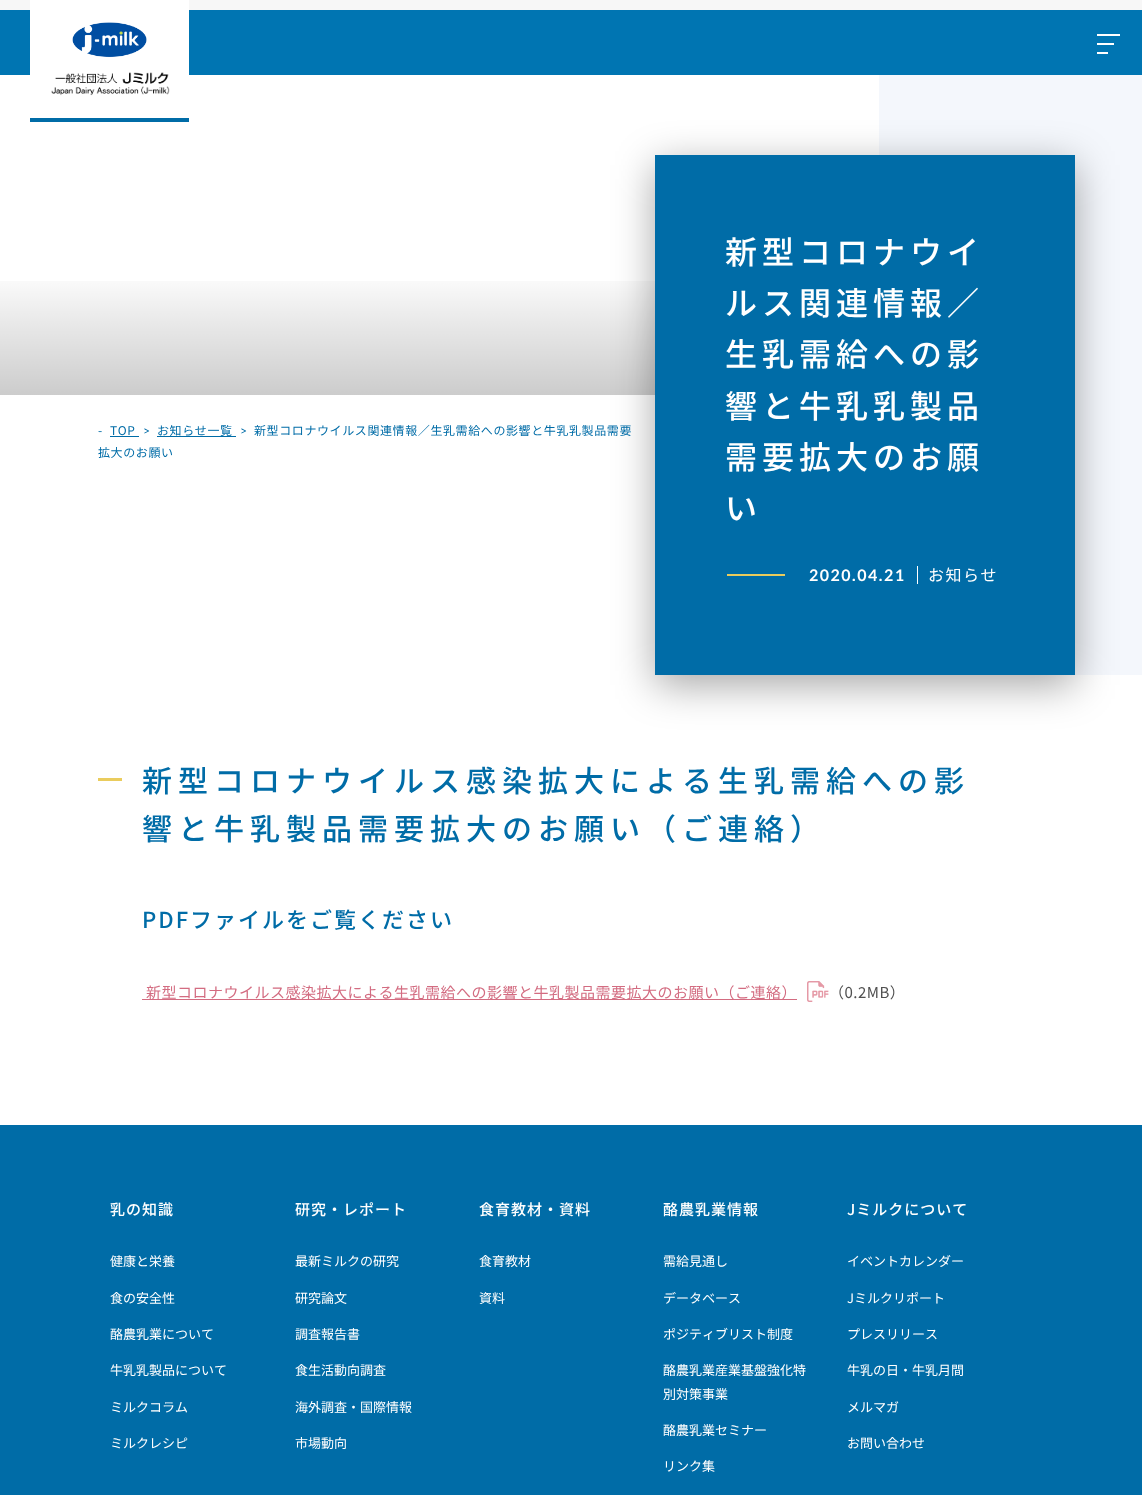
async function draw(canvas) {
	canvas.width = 1142;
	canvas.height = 1495;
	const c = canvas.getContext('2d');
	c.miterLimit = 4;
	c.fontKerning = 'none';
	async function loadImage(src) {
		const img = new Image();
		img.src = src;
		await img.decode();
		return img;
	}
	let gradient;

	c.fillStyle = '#fff';
	c.fillRect(0, 0, 1142, 1495);
	for (const [x, y, w, h, color] of [
		[0, 10, 1142, 65, '#0075b2'],
		[0, 0, 1142, 10, '#f7f7f7'],
		[30, 0, 159, 75, '#fff'],
		[30, 118, 159, 4, '#006ca7'],
	]) {
		c.fillStyle = color;
		c.fillRect(x, y, w, h);
	}
	c.drawImage(await loadImage('img1.png'), 72, 22, 75, 36);
	c.drawImage(await loadImage('img2.png'), 51, 72, 119, 24);
	for (const [x, y, w, h, color] of [
		[1097, 43, 17, 2, '#fff'],
		[1097, 34, 23, 2, '#fff'],
		[1097, 52, 11, 2, '#fff'],
	]) {
		c.fillStyle = color;
		c.fillRect(x, y, w, h);
	}
	gradient = c.createLinearGradient(440, 395, 440, 75);
	gradient.addColorStop(0, '#00000033');
	gradient.addColorStop(0.4, '#00000000');
	c.fillStyle = gradient;
	c.fillRect(0, 281, 655, 114);
	c.fillStyle = '#f4f7fc';
	c.fillRect(879, 75, 263, 600);
	c.fillStyle = '#00000059';
	c.filter = 'blur(20px)';
	c.beginPath();
	c.rect(655, 165, 420, 520);
	c.fill();
	c.filter = 'none';
	c.fillStyle = '#006ca7';
	c.fillRect(655, 155, 420, 520);
	c.letterSpacing = '5px';
	c.font = '500 32px Noto Sans JP';
	c.fillStyle = '#fff';
	for (const [text, x, y] of [
		['新型コロナウイ', 725, 264],
		['ルス関連情報／', 725, 315],
		['生乳需給への影', 725, 366],
		['響と牛乳乳製品', 725, 418],
		['需要拡大のお願', 725, 469],
		['い', 725, 520],
	]) {
		c.fillText(text, x, y);
	}
	c.fillStyle = '#eacc5d';
	c.fillRect(727, 574, 58, 2);
	c.letterSpacing = '1.5px';
	c.font = 'bold 16px Lato';
	c.fillStyle = '#fff';
	c.fillText('2020.04.21', 809, 581);
	c.fillRect(917, 566, 1, 18);
	c.font = '16px Noto Sans JP';
	c.fillText('お知らせ', 928, 581);
	c.letterSpacing = '0.6px';
	c.font = '12px Lato';
	c.fillStyle = '#006ca7';
	c.fillText('>', 240, 435);
	c.font = '12px Noto Sans JP';
	for (const [text, x, y] of [
		['新型コロナウイルス関連情報／生乳需給への影響と牛乳乳製品需要', 254, 435],
		['拡大のお願い', 98, 457],
		['-', 98, 435],
		['TOP', 110, 435],
	]) {
		c.fillText(text, x, y);
	}
	c.fillRect(110, 436, 29, 1);
	c.font = '12px Lato';
	c.fillText('>', 143, 435);
	c.font = '12px Noto Sans JP';
	c.fillText('お知らせ一覧', 157, 435);
	c.fillRect(157, 436, 79, 1);
	c.fillStyle = '#eacc5d';
	c.fillRect(98, 778, 24, 3);
	c.letterSpacing = '6px';
	c.font = '500 30px Noto Sans JP';
	c.fillStyle = '#006ca7';
	c.fillText('新型コロナウイルス感染拡大による生乳需給への影', 142, 792);
	c.fillText('響と牛乳製品需要拡大のお願い（ご連絡）', 142, 840);
	c.letterSpacing = '2px';
	c.font = '500 22px Noto Sans JP';
	c.fillText('PDFファイルをご覧ください', 142, 928);
	c.fillStyle = '#d36c81';
	c.fillRect(142, 999, 655, 1);
	c.letterSpacing = '0.5px';
	c.font = '15px Noto Sans JP';
	c.fillText('新型コロナウイルス感染拡大による生乳需給への影響と牛乳製品需要拡大のお願い（ご連絡）', 146, 998);
	c.drawImage(await loadImage('img3.png'), 807, 981, 22, 21);
	c.fillStyle = '#505050';
	c.fillText('（0.2MB）', 829, 998);
	c.fillStyle = '#006ca7';
	c.fillRect(0, 1125, 1142, 370);
	c.letterSpacing = '1px';
	c.font = '500 15px Noto Sans JP';
	c.fillStyle = '#fff';
	c.fillText('乳の知識', 110, 1215);
	c.letterSpacing = '0px';
	c.font = '13px Noto Sans JP';
	for (const [text, x, y] of [
		['健康と栄養', 110, 1266],
		['食の安全性', 110, 1303],
		['酪農乳業について', 110, 1339],
		['牛乳乳製品について', 110, 1375],
		['ミルクコラム', 110, 1412],
		['ミルクレシピ', 110, 1448],
	]) {
		c.fillText(text, x, y);
	}
	c.letterSpacing = '1px';
	c.font = '500 15px Noto Sans JP';
	c.fillText('研究・レポート', 295, 1215);
	c.letterSpacing = '0px';
	c.font = '13px Noto Sans JP';
	for (const [text, x, y] of [
		['最新ミルクの研究', 295, 1266],
		['研究論文', 295, 1303],
		['調査報告書', 295, 1339],
		['食生活動向調査', 295, 1375],
		['海外調査・国際情報', 295, 1412],
		['市場動向', 295, 1448],
	]) {
		c.fillText(text, x, y);
	}
	c.letterSpacing = '1px';
	c.font = '500 15px Noto Sans JP';
	c.fillText('食育教材・資料', 479, 1215);
	c.letterSpacing = '0px';
	c.font = '13px Noto Sans JP';
	c.fillText('食育教材', 479, 1266);
	c.fillText('資料', 479, 1303);
	c.letterSpacing = '1px';
	c.font = '500 15px Noto Sans JP';
	c.fillText('酪農乳業情報', 663, 1215);
	c.letterSpacing = '0px';
	c.font = '13px Noto Sans JP';
	for (const [text, x, y] of [
		['需給見通し', 663, 1266],
		['データベース', 663, 1303],
		['ポジティブリスト制度', 663, 1339],
		['酪農乳業産業基盤強化特', 663, 1375],
		['別対策事業', 663, 1399],
		['酪農乳業セミナー', 663, 1435],
		['リンク集', 663, 1471],
	]) {
		c.fillText(text, x, y);
	}
	c.letterSpacing = '1px';
	c.font = '500 15px Noto Sans JP';
	c.fillText('Jミルクについて', 847, 1215);
	c.letterSpacing = '0px';
	c.font = '13px Noto Sans JP';
	for (const [text, x, y] of [
		['イベントカレンダー', 847, 1266],
		['Jミルクリポート', 847, 1303],
		['プレスリリース', 847, 1339],
		['牛乳の日・牛乳月間', 847, 1375],
		['メルマガ', 847, 1412],
		['お問い合わせ', 847, 1448],
	]) {
		c.fillText(text, x, y);
	}
}

draw(document.querySelector('canvas'));
